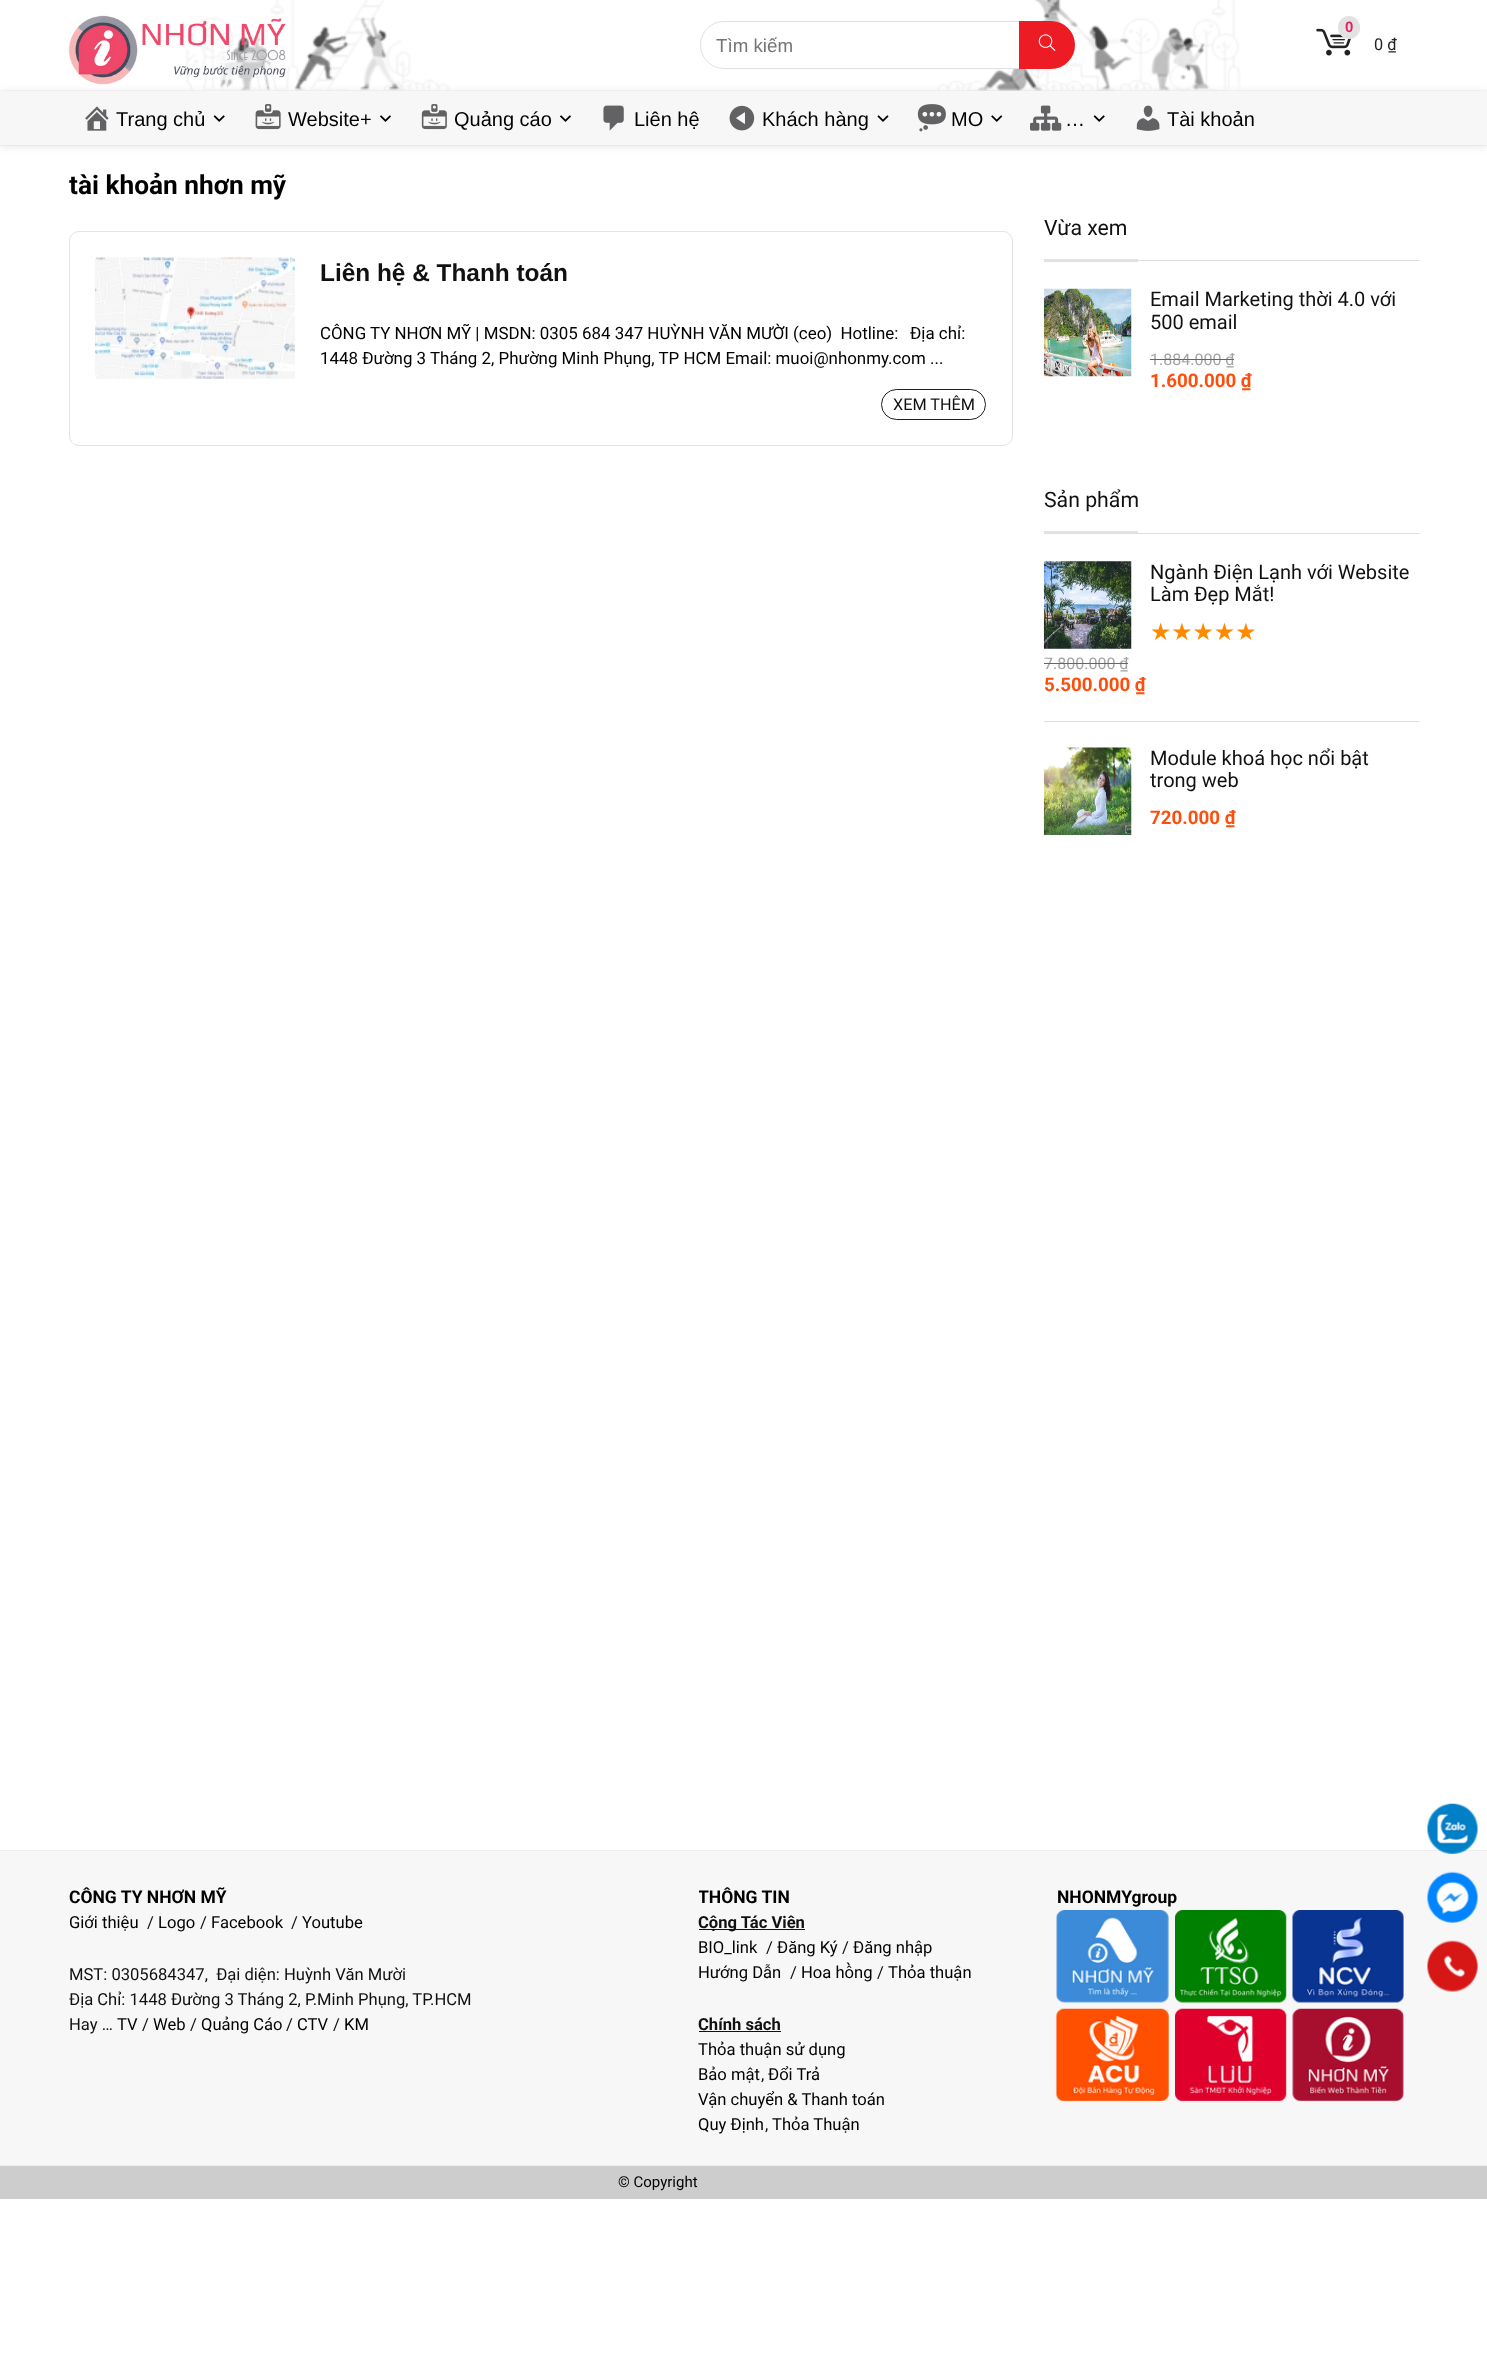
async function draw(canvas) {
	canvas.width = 1487;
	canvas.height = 2365;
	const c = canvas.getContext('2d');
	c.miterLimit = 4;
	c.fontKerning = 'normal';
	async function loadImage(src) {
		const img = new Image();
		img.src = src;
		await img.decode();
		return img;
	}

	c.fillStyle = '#fff';
	c.fillRect(0, 0, 1487, 2365);
	c.drawImage(await loadImage('img1.png'), 185, 0, 1056, 91);
	c.strokeStyle = '#00000008';
	c.strokeRect(-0.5, 90.5, 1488, 55);
	c.fillStyle = '#0000001a';
	c.filter = 'blur(5px)';
	c.beginPath();
	c.rect(0, 93, 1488, 53);
	c.fill();
	c.filter = 'none';
	c.drawImage(await loadImage('img2.png'), 68, 15, 218, 70);
	c.fillStyle = '#fff';
	c.beginPath();
	c.roundRect(700.5, 21.5, 374, 47, 23.5);
	c.fill();
	c.strokeStyle = '#e1e1e1';
	c.stroke();
	c.font = '18.75px Liberation Sans';
	c.fillStyle = '#757575';
	c.fillText('Tìm kiếm', 716, 52);
	c.fillStyle = '#ed1b24';
	c.beginPath();
	c.roundRect(1019, 21, 56, 48, [0, 24, 24, 0]);
	c.fill();
	c.drawImage(await loadImage('img3.png'), 1038, 34, 18, 17);
	c.drawImage(await loadImage('img4.png'), 1316, 28, 36, 28);
	c.fillStyle = '#e2e2e2';
	c.beginPath();
	c.roundRect(1338, 16, 22, 23, 11);
	c.fill();
	c.font = 'bold 15px Liberation Sans';
	c.fillStyle = '#e91e63';
	c.fillText('0', 1345, 32);
	c.font = '16.25px Roboto';
	c.fillStyle = '#222';
	c.fillText('0 ₫', 1374, 50);
	c.fillStyle = '#f7f7f7';
	c.fillRect(0, 91, 1487, 54);
	c.drawImage(await loadImage('img5.png'), 85, 106, 24, 25);
	c.font = '20px Liberation Sans';
	c.fillStyle = '#000';
	c.fillText('Trang chủ', 116, 126);
	c.drawImage(await loadImage('img6.png'), 213, 115, 12, 7);
	c.drawImage(await loadImage('img7.png'), 255, 104, 26, 26);
	c.fillText('Website+', 288, 126);
	c.drawImage(await loadImage('img8.png'), 380, 115, 11, 7);
	c.drawImage(await loadImage('img9.png'), 421, 104, 26, 26);
	c.fillText('Quảng cáo', 454, 126);
	c.drawImage(await loadImage('img8.png'), 560, 115, 11, 7);
	c.drawImage(await loadImage('img10.png'), 603, 105, 21, 26);
	c.fillText('Liên hệ', 634, 126);
	c.drawImage(await loadImage('img11.png'), 729, 105, 26, 26);
	c.fillText('Khách hàng', 762, 126);
	c.drawImage(await loadImage('img12.png'), 877, 115, 12, 7);
	c.drawImage(await loadImage('img13.png'), 917, 104, 29, 28);
	c.fillText('MO', 951, 126);
	c.drawImage(await loadImage('img14.png'), 991, 115, 12, 7);
	c.drawImage(await loadImage('img15.png'), 1030, 105, 32, 26);
	c.drawImage(await loadImage('img6.png'), 1093, 115, 12, 7);
	c.fillText('…', 1065, 126);
	c.drawImage(await loadImage('img16.png'), 1136, 105, 24, 26);
	c.fillText('Tài khoản', 1167, 126);
	c.save();
	c.beginPath();
	c.rect(69, 170, 944, 30);
	c.clip();
	c.font = 'bold 26.25px Roboto';
	c.fillText('tài khoản nhơn mỹ', 69, 194);
	c.restore();
	c.beginPath();
	c.roundRect(69.5, 231.5, 943, 214, 9.5);
	c.strokeStyle = '#e3e3e3';
	c.stroke();
	c.drawImage(await loadImage('img17.png'), 95, 257, 200, 122);
	c.font = 'bold 24.4px Liberation Sans';
	c.fillStyle = '#111';
	c.fillText('Liên hệ & Thanh toán', 320, 281);
	c.font = '16.9px Roboto';
	c.fillStyle = '#000';
	for (const [text, x, y] of [
		['CÔNG TY NHƠN MỸ | MSDN: 0305 684 347 HUỲNH VĂN MƯỜI (ceo)  Hotline:', 320, 339],
		['Địa chỉ:', 910, 339],
		['1448 Đường 3 Tháng 2, Phường Minh Phụng, TP HCM Email: muoi@nhonmy.com ...', 320, 364],
	]) {
		c.fillText(text, x, y);
	}
	c.beginPath();
	c.roundRect(881.5, 389.5, 104, 30, 15);
	c.strokeStyle = '#1e1e1e';
	c.stroke();
	c.font = '16.25px Roboto';
	c.fillStyle = '#111';
	c.fillText('XEM THÊM', 893, 410);
	c.fillStyle = '#ddd';
	c.fillRect(1138, 260, 281, 1);
	c.font = '21.25px Roboto';
	c.fillStyle = '#111';
	c.fillText('Vừa xem', 1044, 235);
	c.fillStyle = '#e2e2e2';
	c.fillRect(1044, 259, 94, 3);
	c.drawImage(await loadImage('img18.png'), 1043, 288, 89, 89);
	c.font = '20px Roboto';
	c.fillStyle = '#111';
	c.fillText('Email Marketing thời 4.0 với', 1150, 306);
	c.fillText('500 email', 1150, 329);
	c.font = '16px Roboto';
	c.fillStyle = '#a3a3a3';
	c.fillText('1.884.000 ₫', 1150, 365);
	c.fillStyle = '#666';
	c.fillRect(1150, 359, 84, 1);
	c.font = 'bold 18.75px Roboto';
	c.fillStyle = '#ff4e0c';
	c.fillText('1.600.000 ₫', 1150, 387);
	c.fillStyle = '#ddd';
	c.fillRect(1138, 533, 281, 1);
	c.font = '21.25px Roboto';
	c.fillStyle = '#111';
	c.fillText('Sản phẩm', 1044, 507);
	c.fillStyle = '#e2e2e2';
	c.fillRect(1044, 531, 94, 3);
	c.fillStyle = '#ddd';
	c.fillRect(1044, 721, 375, 1);
	c.drawImage(await loadImage('img19.png'), 1043, 561, 89, 88);
	c.font = '20px Roboto';
	c.fillStyle = '#111';
	c.fillText('Ngành Điện Lạnh với Website', 1150, 579);
	c.fillText('Làm Đẹp Mắt!', 1150, 601);
	c.font = '23.75px DejaVu Sans';
	c.fillStyle = '#ff8a00';
	c.fillText('★★★★★', 1150, 640);
	c.font = '16px Roboto';
	c.fillStyle = '#a3a3a3';
	c.fillText('7.800.000 ₫', 1044, 669);
	c.fillStyle = '#666';
	c.fillRect(1044, 663, 84, 1);
	c.font = 'bold 18.75px Roboto';
	c.fillStyle = '#ff4e0c';
	c.fillText('5.500.000 ₫', 1044, 691);
	c.drawImage(await loadImage('img20.png'), 1043, 747, 89, 88);
	c.font = '20px Roboto';
	c.fillStyle = '#111';
	c.fillText('Module khoá học nổi bật', 1150, 765);
	c.fillText('trong web', 1150, 787);
	c.font = 'bold 18.75px Roboto';
	c.fillStyle = '#ff4e0c';
	c.fillText('720.000 ₫', 1150, 824);
	c.fillStyle = '#f7f7f7';
	c.fillRect(0, 1851, 1487, 314);
	c.fillStyle = '#eee';
	c.fillRect(0, 1850, 1487, 1);
	c.font = 'bold 17.5px Roboto';
	c.fillStyle = '#000';
	c.fillText('CÔNG TY NHƠN MỸ', 69, 1903);
	c.font = '16.6px Roboto';
	c.fillText('Giới thiệu', 69, 1928);
	c.fillStyle = '#111';
	c.fillText('/', 147, 1928);
	c.fillStyle = '#000';
	c.fillText('Logo', 158, 1928);
	c.fillStyle = '#111';
	c.fillText('/', 200, 1928);
	c.fillStyle = '#000';
	c.fillText('Facebook', 211, 1928);
	c.fillStyle = '#111';
	c.fillText('/', 291, 1928);
	c.fillStyle = '#000';
	c.fillText('Youtube', 302, 1928);
	c.fillStyle = '#111';
	for (const [text, x, y] of [
		['MST: 0305684347,  Đại diện: Huỳnh Văn Mười', 69, 1980],
		['Địa Chỉ: 1448 Đường 3 Tháng 2, P.Minh Phụng, TP.HCM', 69, 2005],
		['Hay …', 69, 2030],
	]) {
		c.fillText(text, x, y);
	}
	c.fillStyle = '#000';
	c.fillText('TV', 117, 2030);
	c.fillStyle = '#111';
	c.fillText('/', 142, 2030);
	c.fillStyle = '#000';
	c.fillText('Web', 153, 2030);
	c.fillStyle = '#111';
	c.fillText('/', 190, 2030);
	c.fillStyle = '#000';
	c.fillText('Quảng Cáo', 201, 2030);
	c.fillStyle = '#111';
	c.fillText('/', 286, 2030);
	c.fillStyle = '#000';
	c.fillText('CTV', 297, 2030);
	c.fillStyle = '#111';
	c.fillText('/', 333, 2030);
	c.fillStyle = '#000';
	c.fillText('KM', 344, 2030);
	c.save();
	c.beginPath();
	c.rect(699, 1883, 285, 282);
	c.clip();
	c.font = 'bold 17.5px Roboto';
	c.fillText('THÔNG TIN', 698, 1903);
	c.restore();
	c.fillStyle = '#111';
	c.fillRect(699, 1929, 106, 1);
	c.font = 'bold 16.6px Roboto';
	c.fillText('Cộng Tác Viên', 698, 1928);
	c.font = '16.6px Roboto';
	c.fillStyle = '#000';
	c.fillText('BIO_link', 698, 1953);
	c.fillStyle = '#111';
	c.fillText('/', 766, 1953);
	c.fillStyle = '#000';
	c.fillText('Đăng Ký', 777, 1953);
	c.fillStyle = '#111';
	c.fillText('/', 842, 1953);
	c.fillStyle = '#000';
	c.fillText('Đăng nhập', 853, 1953);
	c.fillText('Hướng Dẫn', 698, 1978);
	c.fillStyle = '#111';
	c.fillText('/', 790, 1978);
	c.fillStyle = '#000';
	c.fillText('Hoa hồng', 801, 1978);
	c.fillStyle = '#111';
	c.fillText('/', 877, 1978);
	c.fillStyle = '#000';
	c.fillText('Thỏa thuận', 888, 1978);
	c.font = 'bold 16.6px Roboto';
	c.fillStyle = '#111';
	c.fillText('Chính sách', 698, 2030);
	c.fillRect(699, 2031, 82, 1);
	c.font = '16.6px Roboto';
	c.fillStyle = '#000';
	c.fillText('Thỏa thuận sử dụng', 698, 2055);
	c.fillText('Bảo mật', 698, 2080);
	c.fillStyle = '#111';
	c.fillText(',', 761, 2080);
	c.fillStyle = '#000';
	for (const [text, x, y] of [
		['Đổi Trả', 768, 2080],
		['Vận chuyển & Thanh toán', 698, 2105],
		['Quy Định', 698, 2130],
	]) {
		c.fillText(text, x, y);
	}
	c.fillStyle = '#111';
	c.fillText(',', 765, 2130);
	c.fillStyle = '#000';
	c.fillText('Thỏa Thuận', 772, 2130);
	c.font = 'bold 17.5px Roboto';
	c.fillText('NHONMYgroup', 1057, 1903);
	c.drawImage(await loadImage('img21.png'), 1056, 1910, 113, 93);
	c.drawImage(await loadImage('img22.png'), 1175, 1910, 112, 93);
	c.drawImage(await loadImage('img23.png'), 1292, 1910, 112, 93);
	c.drawImage(await loadImage('img24.png'), 1056, 2008, 113, 94);
	c.drawImage(await loadImage('img25.png'), 1175, 2008, 112, 94);
	c.drawImage(await loadImage('img26.png'), 1292, 2008, 112, 94);
	c.fillStyle = '#cdcdcd';
	c.fillRect(0, 2166, 1487, 33);
	c.fillStyle = '#eee';
	c.fillRect(0, 2165, 1487, 1);
	c.font = '15px Roboto';
	c.fillStyle = '#000';
	c.fillText('© Copyright', 618, 2187);
	c.drawImage(await loadImage('img27.png'), 1427, 1803, 51, 51);
	c.drawImage(await loadImage('img28.png'), 1427, 1871, 51, 52);
	c.drawImage(await loadImage('img29.png'), 1427, 1940, 51, 52);
}

draw(document.querySelector('canvas'));
